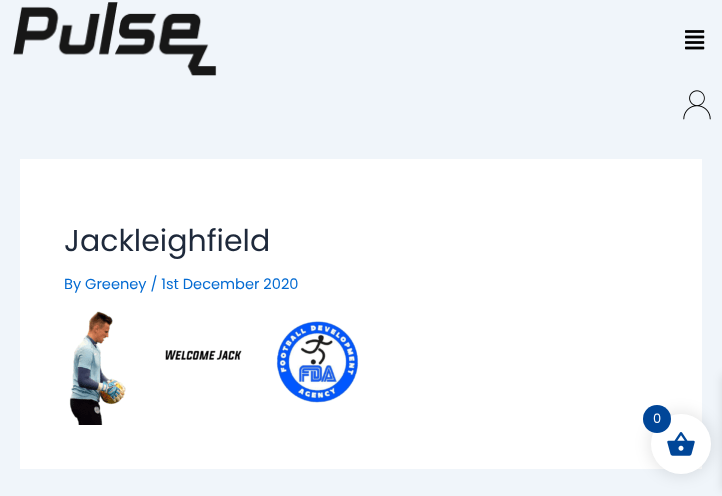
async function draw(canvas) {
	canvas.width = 722;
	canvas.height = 496;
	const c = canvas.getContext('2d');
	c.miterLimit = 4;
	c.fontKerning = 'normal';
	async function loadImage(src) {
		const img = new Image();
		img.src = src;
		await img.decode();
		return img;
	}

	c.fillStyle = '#f0f5fa';
	c.fillRect(0, 0, 722, 496);
	c.drawImage(await loadImage('img1.png'), 13, 2, 204, 74);
	c.drawImage(await loadImage('img2.png'), 685, 30, 20, 20);
	c.drawImage(await loadImage('img3.png'), 683, 90, 28, 30);
	c.fillStyle = '#fff';
	c.fillRect(20, 159, 682, 310);
	c.font = '30px Poppins';
	c.fillStyle = '#1e293b';
	c.fillText('Jackleighfield', 64, 251);
	c.font = '14.6px Poppins';
	c.fillStyle = '#046bd2';
	c.fillText('By Greeney / 1st December 2020', 64, 289);
	c.drawImage(await loadImage('img4.png'), 69, 311, 290, 114);
	c.fillStyle = '#0000001a';
	c.filter = 'blur(7.5px)';
	c.beginPath();
	c.roundRect(649, 412, 64, 64, 32);
	c.fill();
	c.filter = 'none';
	c.filter = 'blur(5px)';
	c.beginPath();
	c.rect(722, 375, 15, 116);
	c.fill();
	c.filter = 'none';
	c.fillStyle = '#fff';
	c.beginPath();
	c.arc(681, 444, 30, 0, 2 * Math.PI);
	c.fill();
	c.drawImage(await loadImage('img5.png'), 667, 432, 28, 24);
	c.fillStyle = '#004698';
	c.beginPath();
	c.arc(657, 419, 14, 0, 2 * Math.PI);
	c.fill();
	c.font = '13px Poppins';
	c.fillStyle = '#fff';
	c.fillText('0', 653, 423);
}

draw(document.querySelector('canvas'));
